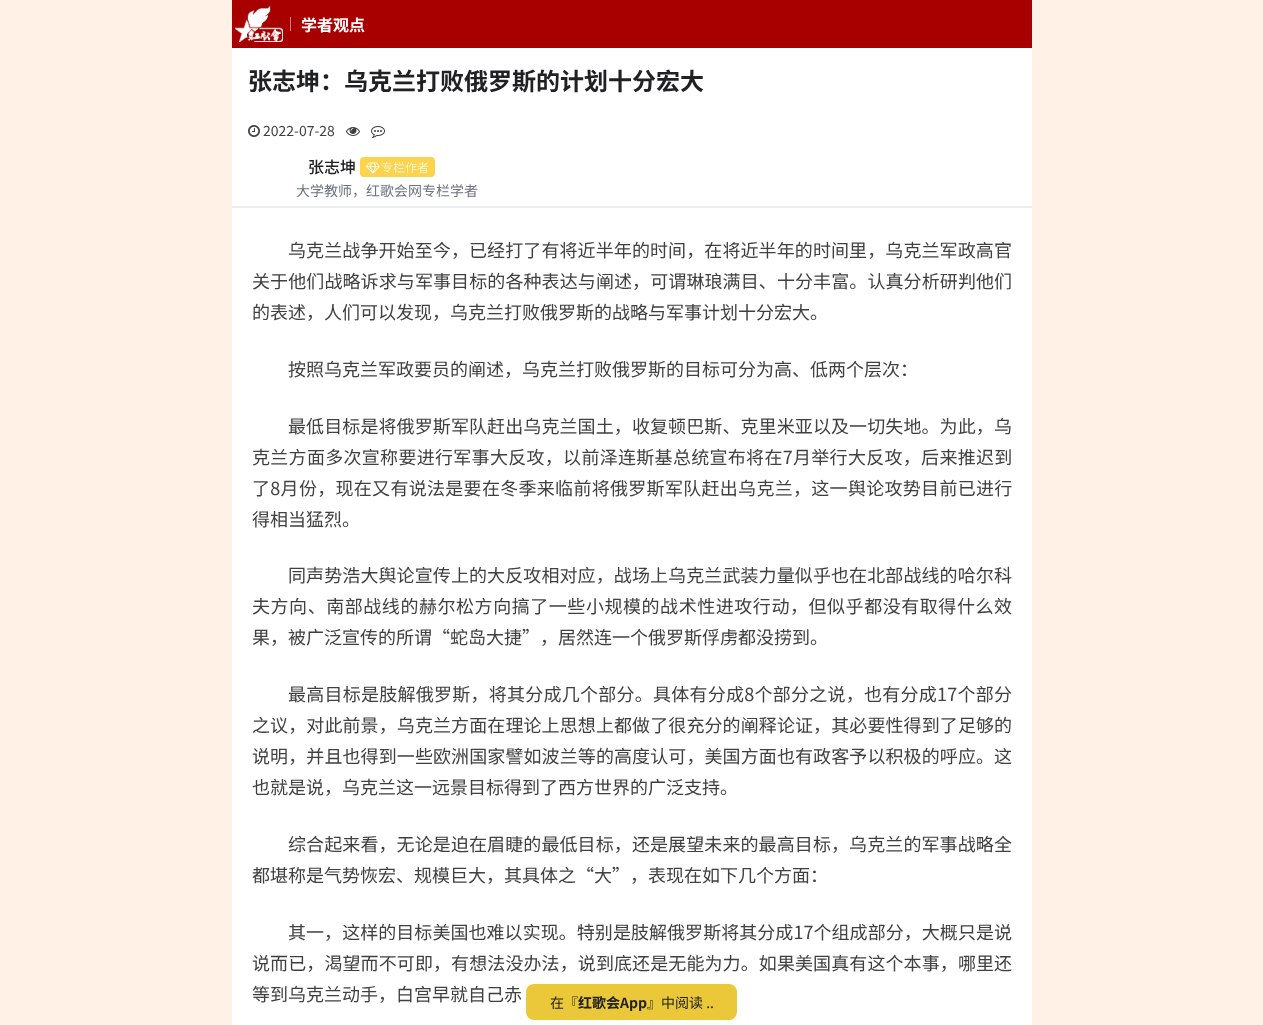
async function draw(canvas) {
	canvas.width = 1263;
	canvas.height = 1025;
	const c = canvas.getContext('2d');
	c.miterLimit = 4;
	c.fontKerning = 'normal';
	async function loadImage(src) {
		const img = new Image();
		img.src = src;
		await img.decode();
		return img;
	}

	c.fillStyle = '#fff1e5';
	c.fillRect(0, 0, 1263, 1025);
	c.fillStyle = '#fff';
	c.fillRect(232, 48, 800, 977);
	c.fillStyle = '#a80000';
	c.fillRect(232, 0, 800, 48);
	c.drawImage(await loadImage('img1.png'), 235, 6, 48, 36);
	c.fillStyle = '#d48080';
	c.fillRect(290, 17, 1, 14);
	c.font = 'bold 16px Noto Sans CJK SC';
	c.fillStyle = '#fff';
	c.fillText('学者观点', 301, 31);
	c.font = 'bold 24px Noto Sans CJK SC';
	c.fillStyle = '#202122';
	c.fillText('张志坤：乌克兰打败俄罗斯的计划十分宏大', 248, 90);
	c.drawImage(await loadImage('img2.png'), 248, 125, 12, 12);
	c.font = '14px Noto Sans CJK SC';
	c.fillStyle = '#404040';
	c.fillText('2022-07-28', 263, 136);
	c.drawImage(await loadImage('img3.png'), 346, 127, 14, 9);
	c.drawImage(await loadImage('img4.png'), 371, 126, 14, 12);
	c.font = '500 16px Noto Sans CJK SC';
	c.fillStyle = '#202122';
	c.fillText('张志坤', 308, 173);
	c.fillStyle = '#fcd34d';
	c.beginPath();
	c.roundRect(360, 157, 75, 20, 4);
	c.fill();
	c.drawImage(await loadImage('img5.png'), 366, 162, 14, 12);
	c.font = '300 12px Noto Sans CJK SC';
	c.fillStyle = '#fff';
	c.fillText('专栏作者', 381, 172);
	c.font = '14px Noto Sans CJK SC';
	c.fillStyle = '#6b7280';
	c.fillText('大学教师，红歌会网专栏学者', 296, 196);
	c.fillStyle = '#eee';
	c.fillRect(232, 206, 800, 2);
	c.letterSpacing = '0.1px';
	c.font = '18px Noto Sans CJK SC';
	c.fillStyle = '#404040';
	c.fillText('乌克兰战争开始至今，已经打了有将近半年的时间，在将近半年的时间里，乌克兰军政高官', 288, 257);
	c.fillText('关于他们战略诉求与军事目标的各种表达与阐述，可谓琳琅满目、十分丰富。认真分析研判他们', 252, 288);
	c.letterSpacing = '0px';
	c.fillText('的表述，人们可以发现，乌克兰打败俄罗斯的战略与军事计划十分宏大。', 252, 319);
	c.fillText('按照乌克兰军政要员的阐述，乌克兰打败俄罗斯的目标可分为高、低两个层次：', 288, 376);
	c.letterSpacing = '0.1px';
	c.fillText('最低目标是将俄罗斯军队赶出乌克兰国土，收复顿巴斯、克里米亚以及一切失地。为此，乌', 288, 433);
	c.letterSpacing = '0.3px';
	c.fillText('克兰方面多次宣称要进行军事大反攻，以前泽连斯基总统宣布将在7月举行大反攻，后来推迟到', 252, 464);
	c.fillText('了8月份，现在又有说法是要在冬季来临前将俄罗斯军队赶出乌克兰，这一舆论攻势目前已进行', 252, 495);
	c.letterSpacing = '0px';
	c.fillText('得相当猛烈。', 252, 526);
	c.letterSpacing = '0.1px';
	c.fillText('同声势浩大舆论宣传上的大反攻相对应，战场上乌克兰武装力量似乎也在北部战线的哈尔科', 288, 582);
	c.letterSpacing = '0.55px';
	c.fillText('夫方向、南部战线的赫尔松方向搞了一些小规模的战术性进攻行动，但似乎都没有取得什么效', 252, 613);
	c.letterSpacing = '0px';
	c.fillText('果，被广泛宣传的所谓“蛇岛大捷”，居然连一个俄罗斯俘虏都没捞到。', 252, 644);
	c.letterSpacing = '0.25px';
	c.fillText('最高目标是肢解俄罗斯，将其分成几个部分。具体有分成8个部分之说，也有分成17个部分', 288, 701);
	c.letterSpacing = '0.1px';
	c.fillText('之议，对此前景，乌克兰方面在理论上思想上都做了很充分的阐释论证，其必要性得到了足够的', 252, 732);
	c.fillText('说明，并且也得到一些欧洲国家譬如波兰等的高度认可，美国方面也有政客予以积极的呼应。这', 252, 763);
	c.letterSpacing = '0px';
	c.fillText('也就是说，乌克兰这一远景目标得到了西方世界的广泛支持。', 252, 794);
	c.letterSpacing = '0.1px';
	c.fillText('综合起来看，无论是迫在眉睫的最低目标，还是展望未来的最高目标，乌克兰的军事战略全', 288, 851);
	c.letterSpacing = '0px';
	c.fillText('都堪称是气势恢宏、规模巨大，其具体之“大”，表现在如下几个方面：', 252, 882);
	c.letterSpacing = '0.05px';
	c.fillText('其一，这样的目标美国也难以实现。特别是肢解俄罗斯将其分成17个组成部分，大概只是说', 288, 939);
	c.letterSpacing = '0.1px';
	c.fillText('说而已，渴望而不可即，有想法没办法，说到底还是无能为力。如果美国真有这个本事，哪里还', 252, 970);
	c.letterSpacing = '0px';
	c.fillText('等到乌克兰动手，白宫早就自己赤', 252, 1001);
	c.fillStyle = '#e8c42aed';
	c.beginPath();
	c.roundRect(526, 984, 52, 36, [8, 0, 0, 8]);
	c.fill();
	c.font = '14px Noto Sans CJK SC';
	c.fillStyle = '#202122';
	c.fillText('在『', 550, 1008);
	c.fillStyle = '#e8c42aed';
	c.fillRect(578, 984, 69, 36);
	c.font = 'bold 14px Noto Sans CJK SC';
	c.fillStyle = '#202122';
	c.fillText('红歌会App', 578, 1008);
	c.fillStyle = '#eac839';
	c.beginPath();
	c.roundRect(647, 984, 90, 36, [0, 8, 8, 0]);
	c.fill();
	c.font = '14px Noto Sans CJK SC';
	c.fillStyle = '#202122';
	c.fillText('』中阅读 ..', 647, 1008);
}

draw(document.querySelector('canvas'));
